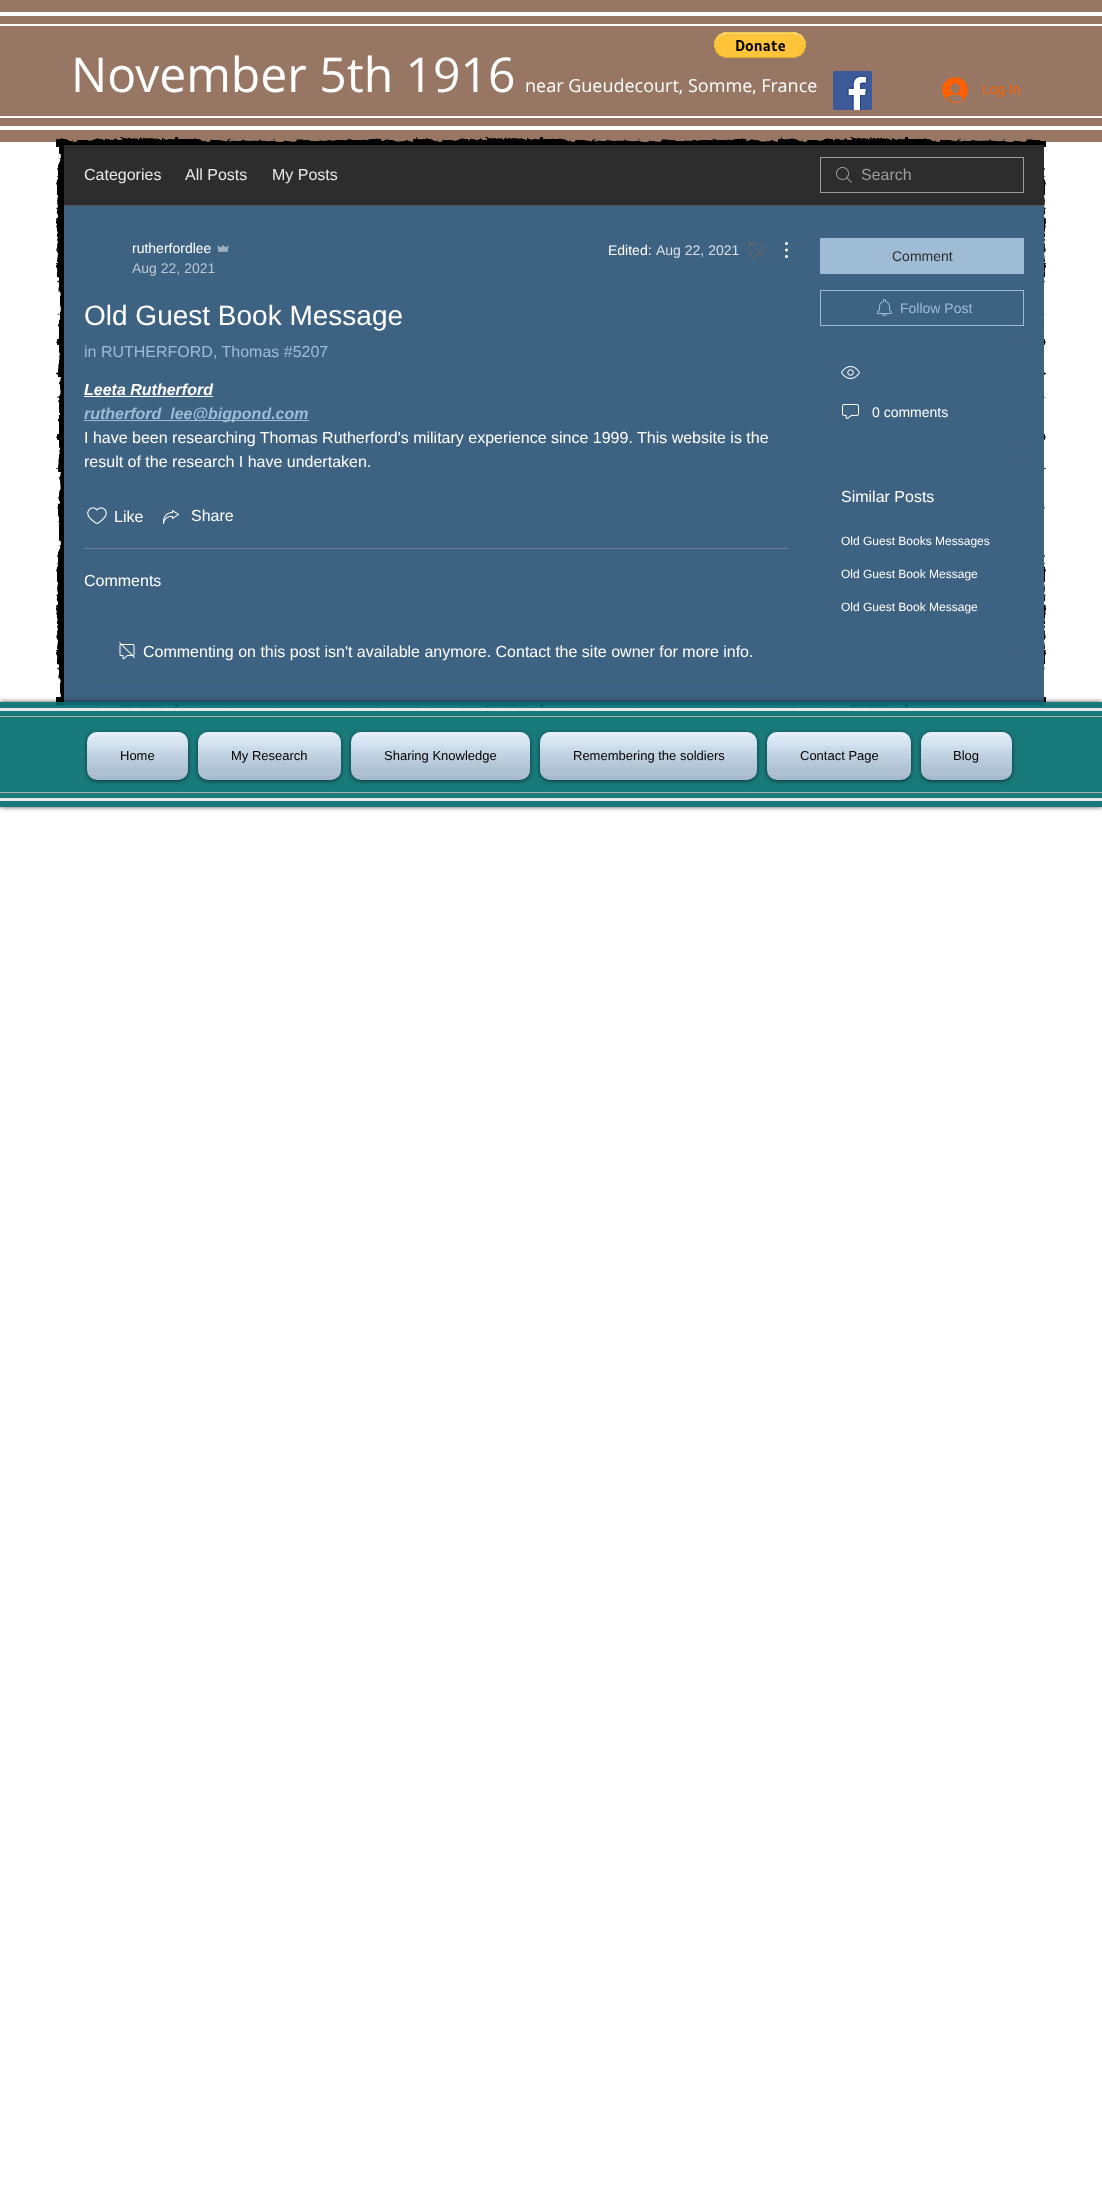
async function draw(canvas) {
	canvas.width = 1102;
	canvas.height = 2191;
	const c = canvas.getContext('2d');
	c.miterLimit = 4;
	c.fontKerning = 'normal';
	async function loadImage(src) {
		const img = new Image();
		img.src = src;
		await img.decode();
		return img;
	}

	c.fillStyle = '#fff';
	c.fillRect(0, 0, 1102, 2191);
	for (const [x, y, w, h, color] of [
		[0, 0, 1102, 142, '#977764'],
		[0, 12, 1102, 4, '#fff'],
		[0, 126, 1102, 4, '#fff'],
		[0, 24, 1102, 2, '#fff'],
		[0, 116, 1102, 2, '#fff'],
	]) {
		c.fillStyle = color;
		c.fillRect(x, y, w, h);
	}
	c.drawImage(await loadImage('img1.png'), 714, 32, 92, 26);
	c.font = '48px Open Sans';
	c.fillText('November 5th 1916', 71, 92);
	c.font = '18px Open Sans';
	c.fillText('near Gueudecourt, Somme, France', 525, 92);
	c.drawImage(await loadImage('img2.png'), 833, 71, 39, 39);
	c.drawImage(await loadImage('img3.png'), 942, 77, 26, 26);
	c.font = '14px Liberation Sans';
	c.fillStyle = '#fc6000';
	c.fillText('Log In', 982, 94);
	c.drawImage(await loadImage('img4.png'), 56, 137, 990, 10);
	c.drawImage(await loadImage('img5.png'), 56, 697, 990, 10);
	c.drawImage(await loadImage('img6.png'), 56, 147, 8, 550);
	c.drawImage(await loadImage('img7.png'), 1044, 167, 2, 503);
	c.fillStyle = '#2d2d2d';
	c.fillRect(64, 145, 980, 60);
	c.fillStyle = '#525252';
	c.fillRect(64, 205, 980, 1);
	c.font = '16px Liberation Sans';
	c.fillStyle = '#e8e8e8';
	for (const [text, x, y] of [
		['Categories', 84, 180],
		['All Posts', 185, 180],
		['My Posts', 272, 180],
	]) {
		c.fillText(text, x, y);
	}
	c.drawImage(await loadImage('img8.png'), 836, 167, 16, 16);
	c.strokeStyle = '#9d9d9d';
	c.strokeRect(820.5, 157.5, 203, 35);
	c.fillStyle = '#9d9d9d';
	c.fillText('Search', 861, 180);
	c.fillStyle = '#3e6282';
	c.fillRect(64, 206, 980, 499);
	c.font = '14px Liberation Sans';
	c.fillStyle = '#fff';
	c.fillText('rutherfordlee', 132, 253);
	c.drawImage(await loadImage('img9.png'), 217, 245, 12, 7);
	c.fillStyle = '#bac6d2';
	c.fillText('Aug 22, 2021', 132, 273);
	c.fillStyle = '#fff';
	c.fillText('Edited:', 608, 255);
	c.fillStyle = '#d8e0e6';
	c.fillText('Aug 22, 2021', 656, 255);
	c.drawImage(await loadImage('img10.png'), 748, 241, 16, 18);
	c.drawImage(await loadImage('img11.png'), 785, 242, 3, 16);
	c.font = '28px Liberation Sans';
	c.fillStyle = '#fff';
	c.fillText('Old Guest Book Message', 84, 325);
	c.font = '16px Liberation Sans';
	c.fillStyle = '#9fbcd7';
	c.fillText('in RUTHERFORD, Thomas #5207', 84, 357);
	c.font = 'italic bold 16px Liberation Sans';
	c.fillStyle = '#fff';
	c.fillText('Leeta Rutherford', 84, 395);
	c.fillRect(84, 396, 129, 1);
	c.fillStyle = '#9fbcd7';
	c.fillRect(84, 420, 225, 1);
	c.fillText('rutherford_lee@bigpond.com', 84, 419);
	c.font = '16px Liberation Sans';
	c.fillStyle = '#fff';
	c.fillText('I have been researching Thomas Rutherford\'s military experience since 1999. This website is the', 84, 443);
	c.fillText('result of the research I have undertaken.', 84, 467);
	c.drawImage(await loadImage('img12.png'), 87, 507, 20, 18);
	c.fillText('Like', 114, 522);
	c.drawImage(await loadImage('img13.png'), 163, 510, 16, 14);
	c.fillText('Share', 191, 521);
	c.fillStyle = '#65819b';
	c.fillRect(84, 548, 704, 1);
	c.fillStyle = '#fff';
	c.fillText('Comments', 84, 586);
	c.strokeStyle = '#436079';
	c.strokeRect(84.5, 621.5, 703, 59);
	c.drawImage(await loadImage('img14.png'), 119, 642, 16, 18);
	c.fillText('Commenting on this post isn\'t available anymore. Contact the site owner for more info.', 143, 657);
	c.fillStyle = '#9fbcd7';
	c.fillRect(820, 238, 204, 36);
	c.font = '14px Liberation Sans';
	c.fillStyle = '#2d2d2d';
	c.fillText('Comment', 892, 261);
	c.strokeStyle = '#9fbcd7';
	c.strokeRect(820.5, 290.5, 203, 35);
	c.drawImage(await loadImage('img15.png'), 877, 299, 15, 17);
	c.fillStyle = '#9fbcd7';
	c.fillText('Follow Post', 900, 313);
	c.strokeStyle = '#436079';
	c.strokeRect(820.5, 342.5, 203, 99);
	c.drawImage(await loadImage('img16.png'), 841, 366, 19, 13);
	c.drawImage(await loadImage('img17.png'), 842, 404, 17, 15);
	c.fillStyle = '#fff';
	c.fillText('0 comments', 872, 417);
	c.strokeRect(820.5, 462.5, 203, 188);
	c.font = '16px Liberation Sans';
	c.fillText('Similar Posts', 841, 502);
	c.font = '12px Liberation Sans';
	for (const [text, x, y] of [
		['Old Guest Books Messages', 841, 545],
		['Old Guest Book Message', 841, 578],
		['Old Guest Book Message', 841, 611],
	]) {
		c.fillText(text, x, y);
	}
	c.save();
	c.beginPath();
	c.moveTo(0, 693);
	c.lineTo(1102, 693);
	c.lineTo(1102, 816);
	c.lineTo(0, 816);
	c.closePath();
	c.moveTo(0, 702);
	c.lineTo(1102, 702);
	c.lineTo(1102, 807);
	c.lineTo(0, 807);
	c.closePath();
	c.clip('evenodd');
	c.fillStyle = '#000000b3';
	c.filter = 'blur(2.5px)';
	c.beginPath();
	c.rect(0, 702, 1102, 105);
	c.fill();
	c.filter = 'none';
	c.restore();
	for (const [x, y, w, h, color] of [
		[0, 702, 1102, 105, '#006c6de6'],
		[0, 708, 1102, 3, '#e8e8e8'],
		[0, 798, 1102, 3, '#e8e8e8'],
		[0, 716, 1102, 1, '#ababab'],
		[0, 792, 1102, 1, '#ababab'],
	]) {
		c.fillStyle = color;
		c.fillRect(x, y, w, h);
	}
	c.fillStyle = '#00000099';
	c.filter = 'blur(2px)';
	c.beginPath();
	c.roundRect(87, 733, 101, 48, 10);
	c.fill();
	c.filter = 'none';
	c.fillStyle = '#c2d7eb';
	c.beginPath();
	c.roundRect(87, 732, 101, 48, 10);
	c.fill();
	c.drawImage(await loadImage('img18.png'), 87, 732, 101, 36);
	c.drawImage(await loadImage('img19.png'), 87, 746, 101, 34);
	c.font = '13px Liberation Sans';
	c.fillStyle = '#000';
	c.fillText('Home', 120, 760);
	c.fillStyle = '#00000099';
	c.filter = 'blur(2px)';
	c.beginPath();
	c.roundRect(198, 733, 143, 48, 10);
	c.fill();
	c.filter = 'none';
	c.fillStyle = '#c2d7eb';
	c.beginPath();
	c.roundRect(198, 732, 143, 48, 10);
	c.fill();
	c.drawImage(await loadImage('img20.png'), 198, 732, 143, 36);
	c.drawImage(await loadImage('img21.png'), 198, 746, 143, 34);
	c.fillStyle = '#000';
	c.fillText('My Research', 231, 760);
	c.fillStyle = '#00000099';
	c.filter = 'blur(2px)';
	c.beginPath();
	c.roundRect(351, 733, 179, 48, 10);
	c.fill();
	c.filter = 'none';
	c.fillStyle = '#c2d7eb';
	c.beginPath();
	c.roundRect(351, 732, 179, 48, 10);
	c.fill();
	c.drawImage(await loadImage('img22.png'), 351, 732, 179, 36);
	c.drawImage(await loadImage('img23.png'), 351, 746, 179, 34);
	c.fillStyle = '#000';
	c.fillText('Sharing Knowledge', 384, 760);
	c.fillStyle = '#00000099';
	c.filter = 'blur(2px)';
	c.beginPath();
	c.roundRect(540, 733, 217, 48, 10);
	c.fill();
	c.filter = 'none';
	c.fillStyle = '#c2d7eb';
	c.beginPath();
	c.roundRect(540, 732, 217, 48, 10);
	c.fill();
	c.drawImage(await loadImage('img24.png'), 540, 732, 217, 36);
	c.drawImage(await loadImage('img25.png'), 540, 746, 217, 34);
	c.fillStyle = '#000';
	c.fillText('Remembering the soldiers', 573, 760);
	c.fillStyle = '#00000099';
	c.filter = 'blur(2px)';
	c.beginPath();
	c.roundRect(767, 733, 144, 48, 10);
	c.fill();
	c.filter = 'none';
	c.fillStyle = '#c2d7eb';
	c.beginPath();
	c.roundRect(767, 732, 144, 48, 10);
	c.fill();
	c.drawImage(await loadImage('img26.png'), 767, 732, 144, 36);
	c.drawImage(await loadImage('img27.png'), 767, 746, 144, 34);
	c.fillStyle = '#000';
	c.fillText('Contact Page', 800, 760);
	c.fillStyle = '#00000099';
	c.filter = 'blur(2px)';
	c.beginPath();
	c.roundRect(921, 733, 91, 48, 10);
	c.fill();
	c.filter = 'none';
	c.fillStyle = '#c2d7eb';
	c.beginPath();
	c.roundRect(921, 732, 91, 48, 10);
	c.fill();
	c.drawImage(await loadImage('img28.png'), 921, 732, 91, 36);
	c.drawImage(await loadImage('img29.png'), 921, 746, 91, 34);
	c.fillStyle = '#000';
	c.fillText('Blog', 953, 760);
}

draw(document.querySelector('canvas'));
